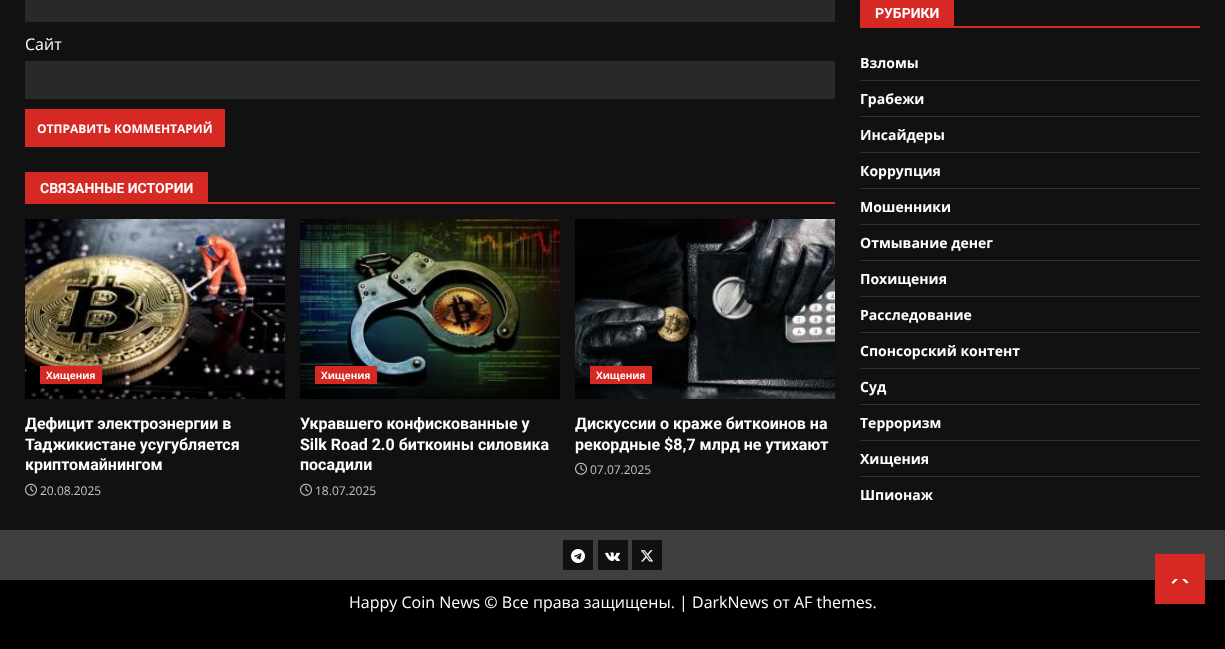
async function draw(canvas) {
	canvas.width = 1225;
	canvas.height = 649;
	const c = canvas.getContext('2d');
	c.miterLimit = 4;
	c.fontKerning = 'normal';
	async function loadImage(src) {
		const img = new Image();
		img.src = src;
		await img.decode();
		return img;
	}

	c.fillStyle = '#000';
	c.fillRect(0, 0, 1225, 649);
	c.fillStyle = '#111';
	c.fillRect(0, 0, 1225, 530);
	c.fillStyle = '#292929';
	c.fillRect(25, 0, 810, 22);
	c.font = '16px Open Sans';
	c.fillStyle = '#fff';
	c.fillText('Сайт', 25, 50);
	c.fillStyle = '#292929';
	c.fillRect(25, 61, 810, 38);
	c.fillStyle = '#d72924';
	c.fillRect(25, 109, 200, 38);
	c.font = 'bold 12px Open Sans';
	c.fillStyle = '#fff';
	c.fillText('ОТПРАВИТЬ КОММЕНТАРИЙ', 37, 133);
	c.fillStyle = '#d72924';
	c.fillRect(25, 202, 810, 2);
	c.fillRect(25, 172, 183, 30);
	c.font = 'bold 14px Roboto';
	c.fillStyle = '#fff';
	c.fillText('СВЯЗАННЫЕ ИСТОРИИ', 40, 193);
	c.drawImage(await loadImage('img1.png'), 25, 219, 260, 180);
	c.fillStyle = '#d72924';
	c.fillRect(40, 366, 62, 18);
	c.font = 'bold 10px Open Sans';
	c.fillStyle = '#fff';
	c.fillText('Хищения', 46, 379);
	c.font = 'bold 16px Roboto';
	for (const [text, x, y] of [
		['Дефицит электроэнергии в', 25, 429],
		['Таджикистане усугубляется', 25, 450],
		['криптомайнингом', 25, 470],
	]) {
		c.fillText(text, x, y);
	}
	c.drawImage(await loadImage('img2.png'), 25, 483, 12, 13);
	c.font = '12px Open Sans';
	c.fillStyle = '#c4c4c4';
	c.fillText('20.08.2025', 40, 495);
	c.drawImage(await loadImage('img3.png'), 300, 219, 260, 180);
	c.fillStyle = '#d72924';
	c.fillRect(315, 366, 62, 18);
	c.font = 'bold 10px Open Sans';
	c.fillStyle = '#fff';
	c.fillText('Хищения', 321, 379);
	c.font = 'bold 16px Roboto';
	for (const [text, x, y] of [
		['Укравшего конфискованные у', 300, 429],
		['Silk Road 2.0 биткоины силовика', 300, 450],
		['посадили', 300, 470],
	]) {
		c.fillText(text, x, y);
	}
	c.drawImage(await loadImage('img2.png'), 300, 483, 12, 13);
	c.font = '12px Open Sans';
	c.fillStyle = '#c4c4c4';
	c.fillText('18.07.2025', 315, 495);
	c.drawImage(await loadImage('img4.png'), 575, 219, 260, 180);
	c.fillStyle = '#d72924';
	c.fillRect(590, 366, 62, 18);
	c.font = 'bold 10px Open Sans';
	c.fillStyle = '#fff';
	c.fillText('Хищения', 596, 379);
	c.font = 'bold 16px Roboto';
	c.fillText('Дискуссии о краже биткоинов на', 575, 429);
	c.fillText('рекордные $8,7 млрд не утихают', 575, 450);
	c.drawImage(await loadImage('img2.png'), 575, 462, 12, 13);
	c.font = '12px Open Sans';
	c.fillStyle = '#c4c4c4';
	c.fillText('07.07.2025', 590, 474);
	c.fillStyle = '#d72924';
	c.fillRect(860, 0, 94, 26);
	c.font = 'bold 14px Roboto';
	c.fillStyle = '#fff';
	c.fillText('РУБРИКИ', 875, 18);
	c.fillStyle = '#d72924';
	c.fillRect(860, 26, 340, 2);
	c.fillStyle = '#323232';
	c.fillRect(860, 80, 340, 1);
	c.font = 'bold 14px Open Sans';
	c.fillStyle = '#fff';
	c.fillText('Взломы', 860, 68);
	c.fillStyle = '#323232';
	c.fillRect(860, 116, 340, 1);
	c.fillStyle = '#fff';
	c.fillText('Грабежи', 860, 104);
	c.fillStyle = '#323232';
	c.fillRect(860, 152, 340, 1);
	c.fillStyle = '#fff';
	c.fillText('Инсайдеры', 860, 140);
	c.fillStyle = '#323232';
	c.fillRect(860, 188, 340, 1);
	c.fillStyle = '#fff';
	c.fillText('Коррупция', 860, 176);
	c.fillStyle = '#323232';
	c.fillRect(860, 224, 340, 1);
	c.fillStyle = '#fff';
	c.fillText('Мошенники', 860, 212);
	c.fillStyle = '#323232';
	c.fillRect(860, 260, 340, 1);
	c.fillStyle = '#fff';
	c.fillText('Отмывание денег', 860, 248);
	c.fillStyle = '#323232';
	c.fillRect(860, 296, 340, 1);
	c.fillStyle = '#fff';
	c.fillText('Похищения', 860, 284);
	c.fillStyle = '#323232';
	c.fillRect(860, 332, 340, 1);
	c.fillStyle = '#fff';
	c.fillText('Расследование', 860, 320);
	c.fillStyle = '#323232';
	c.fillRect(860, 368, 340, 1);
	c.fillStyle = '#fff';
	c.fillText('Спонсорский контент', 860, 356);
	c.fillStyle = '#323232';
	c.fillRect(860, 404, 340, 1);
	c.fillStyle = '#fff';
	c.fillText('Суд', 860, 392);
	c.fillStyle = '#323232';
	c.fillRect(860, 440, 340, 1);
	c.fillStyle = '#fff';
	c.fillText('Терроризм', 860, 428);
	c.fillStyle = '#323232';
	c.fillRect(860, 476, 340, 1);
	c.fillStyle = '#fff';
	c.fillText('Хищения', 860, 464);
	c.fillText('Шпионаж', 860, 500);
	c.fillStyle = '#3f3f3f';
	c.fillRect(0, 530, 1225, 50);
	c.fillStyle = '#101010';
	c.fillRect(563, 540, 30, 30);
	c.drawImage(await loadImage('img5.png'), 571, 549, 14, 14);
	c.fillRect(598, 540, 30, 30);
	c.drawImage(await loadImage('img6.png'), 605, 552, 15, 9);
	c.fillRect(632, 540, 30, 30);
	c.drawImage(await loadImage('img7.png'), 640, 550, 14, 12);
	c.font = '16px Open Sans';
	c.fillStyle = '#fff';
	c.fillText('Happy Coin News © Все права защищены. | DarkNews от AF themes.', 349, 608);
	c.fillStyle = '#d72924';
	c.fillRect(1155, 554, 50, 50);
	c.fillStyle = '#fff';
	c.beginPath();
	c.moveTo(1175, 584);
	c.bezierCurveTo(1178, 584, 1186.5, 585, 1188.5, 582.5);
	c.lineTo(1185, 579);
	c.lineTo(1175, 579);
	c.lineTo(1171.5, 582.5);
	c.bezierCurveTo(1172, 583.5, 1173.5, 584, 1175, 584);
	c.closePath();
	c.fill();
	c.fillStyle = '#d72924';
	c.beginPath();
	c.moveTo(1190, 587);
	c.lineTo(1170, 587);
	c.lineTo(1180, 577);
	c.closePath();
	c.fill();
}

draw(document.querySelector('canvas'));
